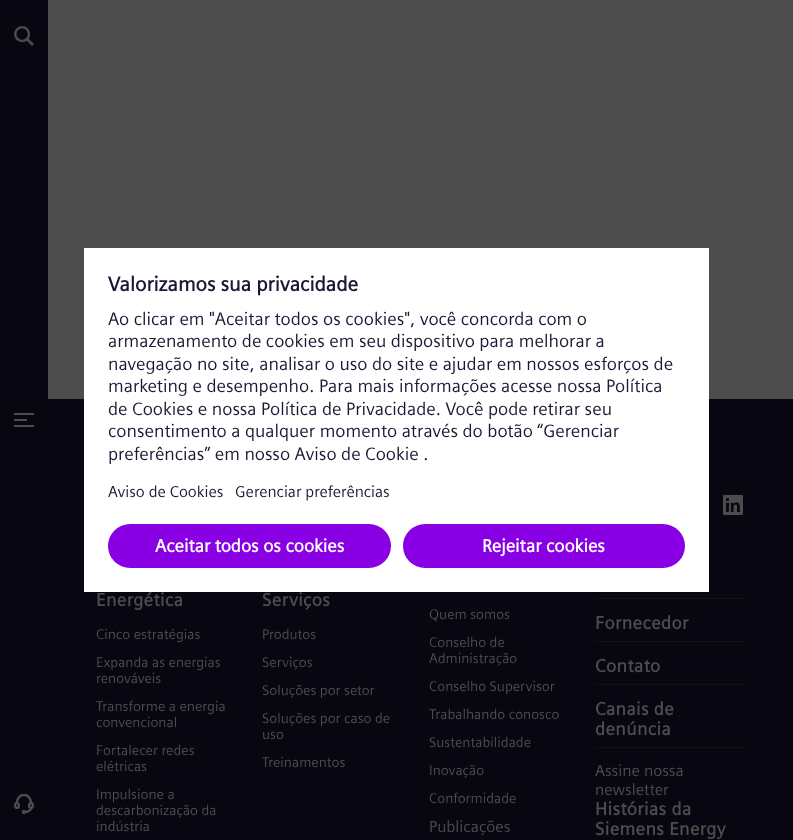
async function draw(canvas) {
	canvas.width = 793;
	canvas.height = 840;
	const c = canvas.getContext('2d');
	c.miterLimit = 4;
	c.fontKerning = 'normal';
	async function loadImage(src) {
		const img = new Image();
		img.src = src;
		await img.decode();
		return img;
	}

	c.fillStyle = '#4d4d4d';
	c.fillRect(0, 0, 793, 840);
	c.fillStyle = '#080610';
	c.fillRect(48, 399, 745, 441);
	c.fillStyle = '#fff';
	c.fillRect(84, 248, 625, 344);
	c.font = 'bold 20.25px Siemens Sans';
	c.fillStyle = '#1b1734';
	c.fillText('Valorizamos sua privacidade', 108, 291);
	c.font = '18px Siemens Sans';
	for (const [text, x, y] of [
		['Ao clicar em "Aceitar todos os cookies", você concorda com o', 108, 325],
		['armazenamento de cookies em seu dispositivo para melhorar a', 108, 347],
		['navegação no site, analisar o uso do site e ajudar em nossos esforços de', 108, 370],
		['marketing e desempenho. Para mais informações acesse nossa Política', 108, 392],
		['de Cookies e nossa Política de Privacidade. Você pode retirar seu', 108, 415],
		['consentimento a qualquer momento através do botão “Gerenciar', 108, 437],
		['preferências” em nosso Aviso de Cookie .', 108, 460],
	]) {
		c.fillText(text, x, y);
	}
	c.font = '15.75px Siemens Sans';
	c.fillText('Aviso de Cookies', 108, 497);
	c.fillText('Gerenciar preferências', 235, 497);
	c.fillStyle = '#8a00e5';
	c.beginPath();
	c.roundRect(108, 524, 283, 44, 22);
	c.fill();
	c.font = 'bold 18px Siemens Sans';
	c.fillStyle = '#fff';
	c.fillText('Aceitar todos os cookies', 155, 552);
	c.fillStyle = '#8a00e5';
	c.beginPath();
	c.roundRect(403, 524, 282, 44, 22);
	c.fill();
	c.fillStyle = '#fff';
	c.fillText('Rejeitar cookies', 482, 552);
	c.fillStyle = '#080610';
	c.fillRect(0, 0, 48, 840);
	c.drawImage(await loadImage('img1.png'), 14, 26, 21, 21);
	c.drawImage(await loadImage('img2.png'), 14, 413, 20, 14);
	c.drawImage(await loadImage('img3.png'), 14, 794, 20, 20);
	c.drawImage(await loadImage('img4.png'), 723, 495, 20, 20);
	c.letterSpacing = '0.4px';
	c.fillStyle = '#4d4d4d';
	c.fillText('Energética', 96, 606);
	c.letterSpacing = '0px';
	c.font = '14px Siemens Sans';
	for (const [text, x, y] of [
		['Cinco estratégias', 96, 639],
		['Expanda as energias', 96, 667],
		['renováveis', 96, 683],
		['Transforme a energia', 96, 711],
		['convencional', 96, 727],
		['Fortalecer redes', 96, 755],
		['elétricas', 96, 771],
		['Impulsione a', 96, 799],
		['descarbonização da', 96, 815],
		['indústria', 96, 831],
	]) {
		c.fillText(text, x, y);
	}
	c.letterSpacing = '0.4px';
	c.font = 'bold 18px Siemens Sans';
	c.fillText('Serviços', 262, 606);
	c.letterSpacing = '0px';
	c.font = '14px Siemens Sans';
	for (const [text, x, y] of [
		['Produtos', 262, 639],
		['Serviços', 262, 667],
		['Soluções por setor', 262, 695],
		['Soluções por caso de', 262, 723],
		['uso', 262, 739],
		['Treinamentos', 262, 767],
		['Quem somos', 429, 619],
		['Conselho de', 429, 647],
		['Administração', 429, 663],
		['Conselho Supervisor', 429, 691],
		['Trabalhando conosco', 429, 719],
		['Sustentabilidade', 429, 747],
		['Inovação', 429, 775],
		['Conformidade', 429, 803],
	]) {
		c.fillText(text, x, y);
	}
	c.font = '16px Siemens Sans';
	c.fillText('Publicações', 429, 832);
	c.fillStyle = '#111';
	c.fillRect(595, 598, 150, 1);
	c.fillRect(595, 641, 150, 1);
	c.letterSpacing = '0.4px';
	c.font = 'bold 18px Siemens Sans';
	c.fillStyle = '#4d4d4d';
	c.fillText('Fornecedor', 595, 629);
	c.fillStyle = '#111';
	c.fillRect(595, 684, 150, 1);
	c.fillStyle = '#4d4d4d';
	c.fillText('Contato', 595, 672);
	c.fillStyle = '#111';
	c.fillRect(595, 747, 150, 1);
	c.fillStyle = '#4d4d4d';
	c.fillText('Canais de', 595, 715);
	c.fillText('denúncia', 595, 735);
	c.letterSpacing = '0px';
	c.font = '16px Siemens Sans';
	c.fillText('Assine nossa', 595, 776);
	c.fillText('newsletter', 595, 795);
	c.letterSpacing = '0.4px';
	c.font = 'bold 18px Siemens Sans';
	c.fillText('Histórias da', 595, 815);
	c.fillText('Siemens Energy', 595, 835);
}

draw(document.querySelector('canvas'));
